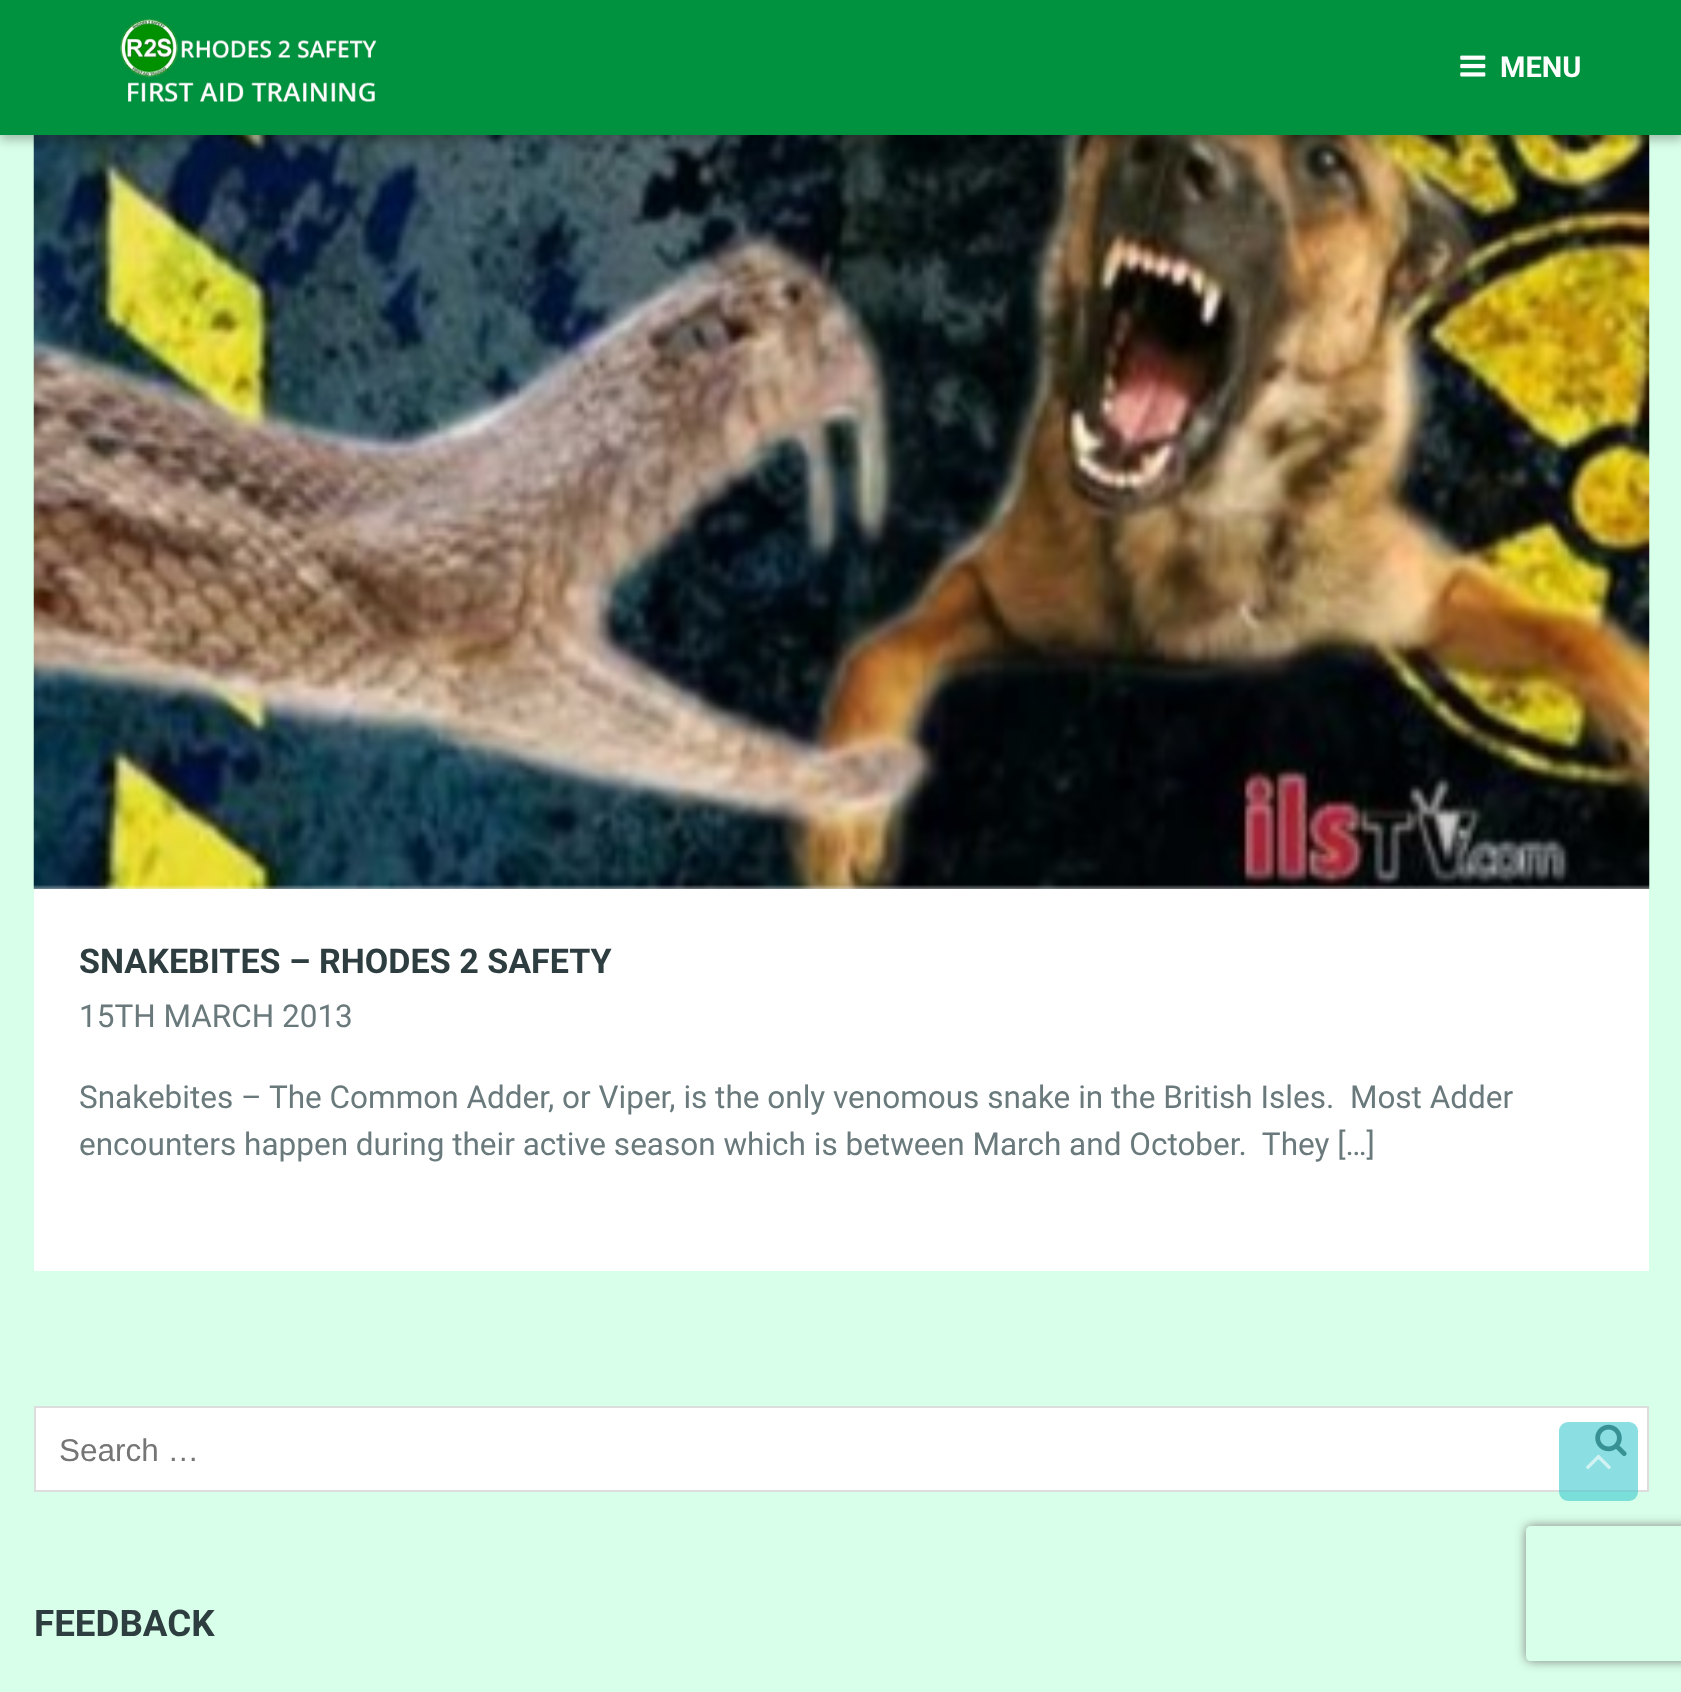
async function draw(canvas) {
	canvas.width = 1681;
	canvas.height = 1692;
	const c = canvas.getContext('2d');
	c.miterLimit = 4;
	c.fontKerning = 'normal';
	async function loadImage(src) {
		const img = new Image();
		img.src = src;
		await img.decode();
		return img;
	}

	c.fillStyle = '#d8ffe9';
	c.fillRect(0, 0, 1681, 1692);
	c.fillStyle = '#fff';
	c.fillRect(34, 885, 1615, 386);
	c.drawImage(await loadImage('img3.png'), 33, 135, 1617, 754);
	c.fillStyle = '#00000042';
	c.filter = 'blur(5.5px)';
	c.beginPath();
	c.rect(0, 5, 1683, 135);
	c.fill();
	c.filter = 'none';
	c.fillStyle = '#01923f';
	c.fillRect(0, 0, 1681, 135);
	c.drawImage(await loadImage('img1.png'), 120, 19, 257, 83);
	c.drawImage(await loadImage('img2.png'), 1460, 55, 26, 22);
	c.font = 'bold 29px Roboto';
	c.fillStyle = '#fff';
	c.fillText('MENU', 1500, 77);
	c.font = 'bold 34.1px Roboto';
	c.fillStyle = '#2e3e40';
	c.fillText('SNAKEBITES – RHODES 2 SAFETY', 79, 973);
	c.font = '31.5px Roboto';
	c.fillStyle = '#6a7a7c';
	for (const [text, x, y] of [
		['15TH MARCH 2013', 79, 1027],
		['Snakebites – The Common Adder, or Viper, is the only venomous snake in the British Isles.  Most Adder', 79, 1108],
		['encounters happen during their active season which is between March and October.  They […]', 79, 1155],
	]) {
		c.fillText(text, x, y);
	}
	c.fillStyle = '#fff';
	c.beginPath();
	c.rect(35, 1407, 1613, 84);
	c.fill();
	c.strokeStyle = '#ddd';
	c.lineWidth = 2;
	c.stroke();
	c.font = '31.5px Liberation Sans';
	c.fillStyle = '#757575';
	c.fillText('Search …', 59, 1461);
	c.drawImage(await loadImage('img4.png'), 1595, 1424, 32, 33);
	c.font = 'bold 36.75px Roboto';
	c.fillStyle = '#2e3e40';
	c.fillText('FEEDBACK', 34, 1636);
	c.fillStyle = '#3ec9ce99';
	c.beginPath();
	c.roundRect(1559, 1422, 79, 79, 9);
	c.fill();
	c.drawImage(await loadImage('img5.png'), 1586, 1454, 25, 16);
	c.save();
	c.beginPath();
	c.moveTo(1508, 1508);
	c.lineTo(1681, 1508);
	c.lineTo(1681, 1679);
	c.lineTo(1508, 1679);
	c.closePath();
	c.moveTo(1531, 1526);
	c.lineTo(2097, 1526);
	c.bezierCurveTo(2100, 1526, 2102, 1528, 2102, 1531);
	c.lineTo(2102, 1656);
	c.bezierCurveTo(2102, 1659, 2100, 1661, 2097, 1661);
	c.lineTo(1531, 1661);
	c.bezierCurveTo(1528, 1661, 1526, 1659, 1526, 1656);
	c.lineTo(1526, 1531);
	c.bezierCurveTo(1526, 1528, 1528, 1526, 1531, 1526);
	c.closePath();
	c.clip('evenodd');
	c.fillStyle = '#808080';
	c.filter = 'blur(5.5px)';
	c.beginPath();
	c.roundRect(1526, 1526, 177, 135, 5);
	c.fill();
	c.filter = 'none';
	c.restore();
}

draw(document.querySelector('canvas'));
